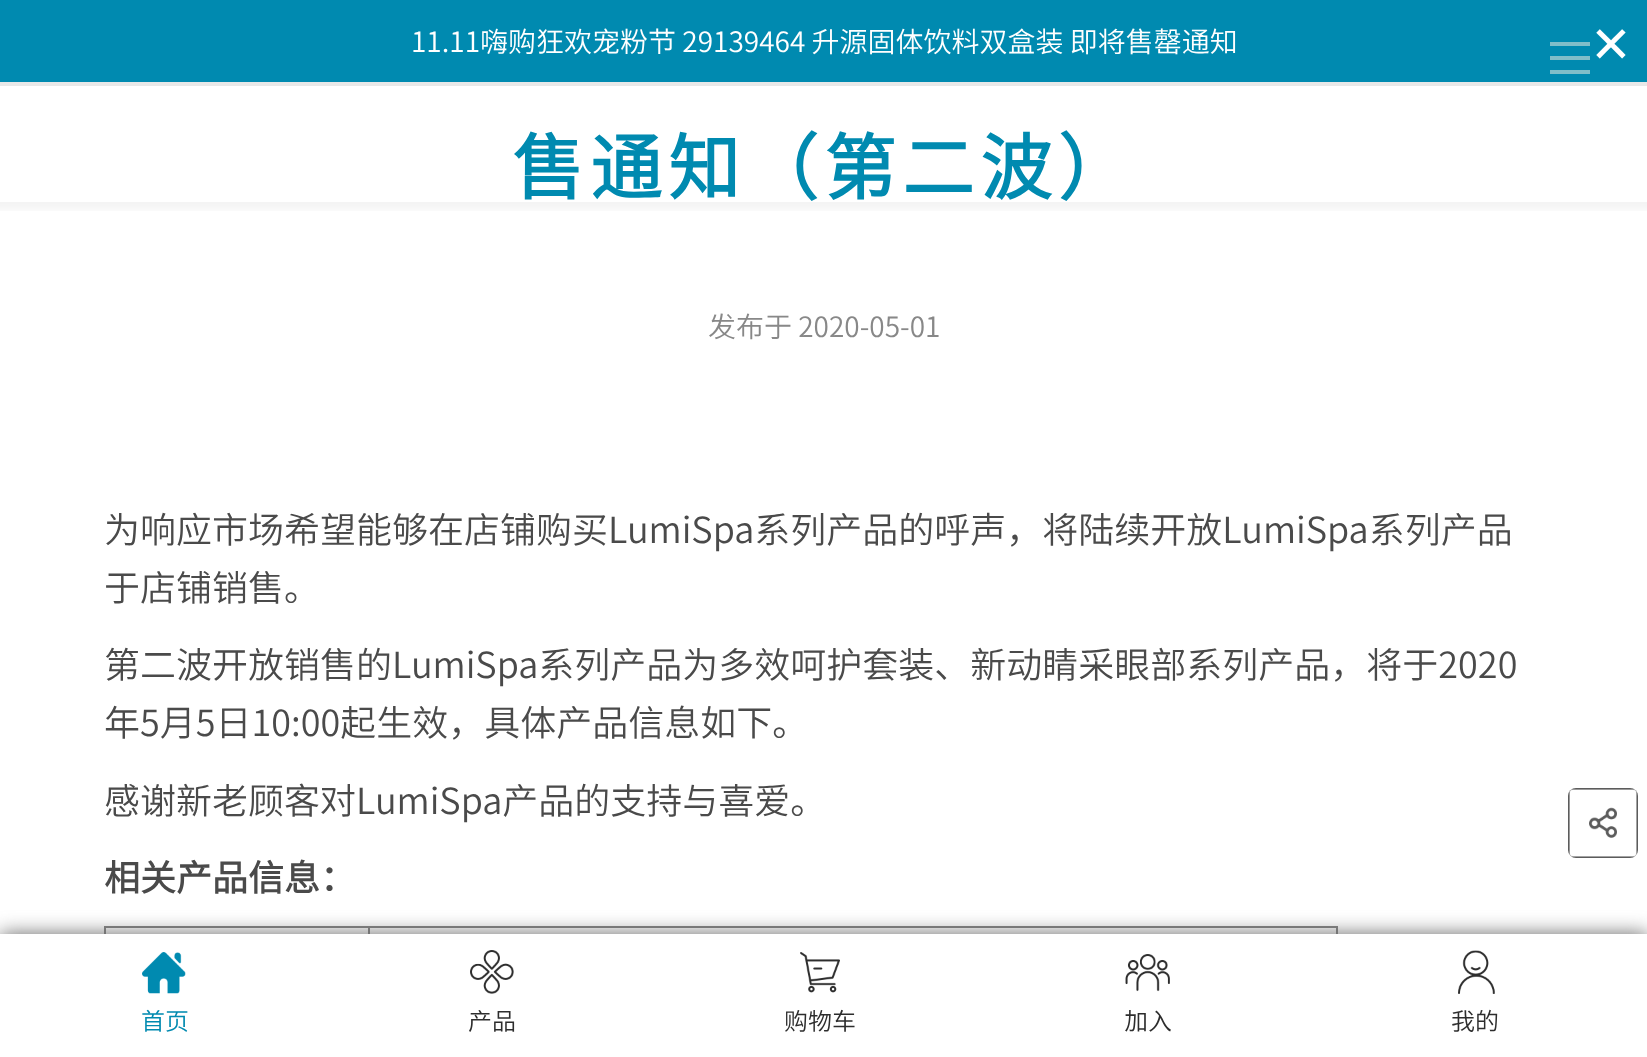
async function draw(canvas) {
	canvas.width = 1647;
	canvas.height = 1057;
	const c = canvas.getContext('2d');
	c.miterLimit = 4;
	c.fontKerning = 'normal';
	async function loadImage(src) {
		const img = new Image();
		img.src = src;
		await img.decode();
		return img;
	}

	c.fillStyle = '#fff';
	c.fillRect(0, 0, 1647, 1057);
	c.fillStyle = '#008ab0';
	c.fillRect(0, 0, 1647, 82);
	c.fillStyle = '#e8e8e8';
	c.fillRect(0, 82, 1647, 4);
	c.font = '300 28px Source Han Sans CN';
	c.fillStyle = '#fff';
	c.fillText('11.11嗨购狂欢宠粉节 29139464 升源固体饮料双盒装 即将售罄通知', 411, 52);
	c.font = '50px DejaVu Sans';
	c.fillText('✕', 1590, 62);
	for (const [x, y, w, h, color] of [
		[1550, 42, 40, 4, '#80bec9'],
		[1550, 56, 40, 4, '#80bec9'],
		[1550, 70, 40, 4, '#80bec9'],
		[104, 926, 1234, 2, '#808080'],
		[1336, 926, 2, 8, '#808080'],
		[104, 926, 2, 8, '#808080'],
		[368, 926, 2, 8, '#808080'],
	]) {
		c.fillStyle = color;
		c.fillRect(x, y, w, h);
	}
	c.fillStyle = '#666';
	c.filter = 'blur(10px)';
	c.beginPath();
	c.rect(0, 934, 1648, 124);
	c.fill();
	c.filter = 'none';
	c.fillStyle = '#fff';
	c.fillRect(0, 934, 1647, 123);
	c.drawImage(await loadImage('img1.png'), 142, 952, 44, 42);
	c.font = '300 24px Source Han Sans CN';
	c.fillStyle = '#008ab0';
	c.fillText('首页', 141, 1030);
	c.drawImage(await loadImage('img2.png'), 470, 950, 44, 44);
	c.fillStyle = '#2d2d2d';
	c.fillText('产品', 468, 1030);
	c.drawImage(await loadImage('img3.png'), 800, 952, 40, 41);
	c.fillText('购物车', 784, 1030);
	c.drawImage(await loadImage('img4.png'), 1125, 954, 45, 38);
	c.fillText('加入', 1124, 1030);
	c.drawImage(await loadImage('img5.png'), 1458, 950, 37, 44);
	c.fillText('我的', 1451, 1030);
	c.letterSpacing = '6px';
	c.font = 'bold 72px Source Han Sans CN';
	c.fillStyle = '#008ab0';
	c.fillText('售通知（第二波）', 512, 194);
	c.letterSpacing = '0px';
	c.font = '300 28px Source Han Sans CN';
	c.fillStyle = '#888';
	c.fillText('发布于 2020-05-01', 708, 337);
	c.drawImage(await loadImage('img6.png'), 0, 202, 1647, 9);
	c.font = '300 36px Source Han Sans CN';
	c.fillStyle = '#4a4a4a';
	for (const [text, x, y] of [
		['为响应市场希望能够在店铺购买LumiSpa系列产品的呼声，将陆续开放LumiSpa系列产品', 104, 543],
		['于店铺销售。', 104, 601],
		['第二波开放销售的LumiSpa系列产品为多效呵护套装、新动睛采眼部系列产品，将于2020', 104, 678],
		['年5月5日10:00起生效，具体产品信息如下。', 104, 736],
		['感谢新老顾客对LumiSpa产品的支持与喜爱。', 104, 814],
	]) {
		c.fillText(text, x, y);
	}
	c.font = 'bold 36px Source Han Sans CN';
	c.fillText('相关产品信息：', 104, 891);
	c.drawImage(await loadImage('img7.png'), 1568, 788, 70, 70);
}

draw(document.querySelector('canvas'));
